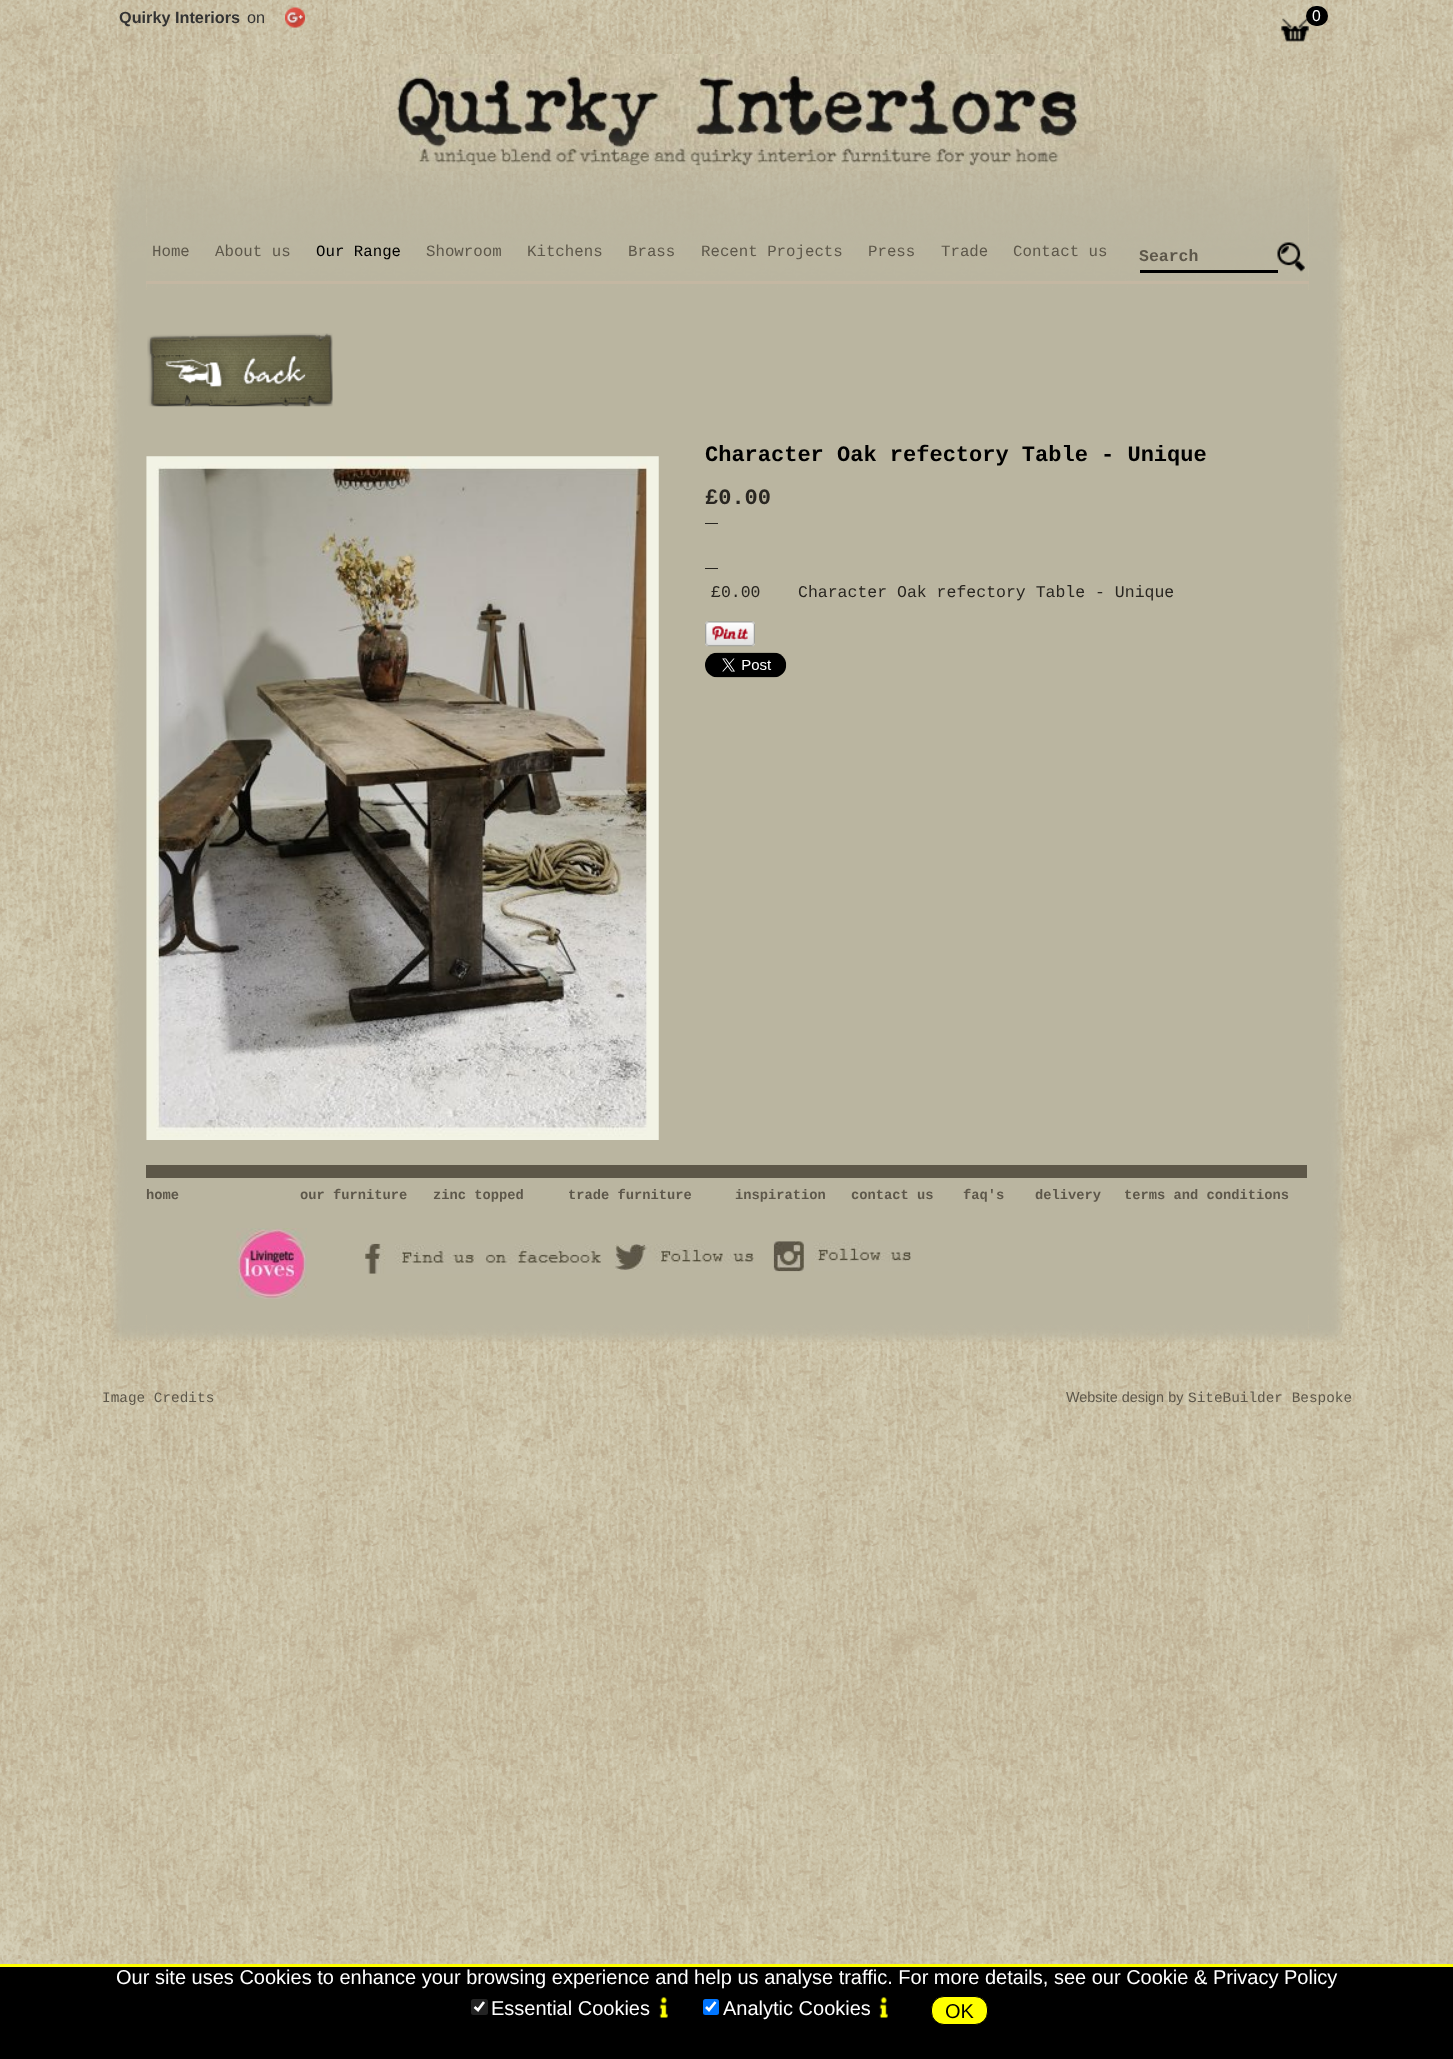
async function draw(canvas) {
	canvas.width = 1453;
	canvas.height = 2059;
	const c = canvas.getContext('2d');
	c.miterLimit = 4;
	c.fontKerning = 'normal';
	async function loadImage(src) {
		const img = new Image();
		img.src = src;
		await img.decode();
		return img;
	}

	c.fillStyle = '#fff';
	c.fillRect(0, 0, 1453, 2059);
	c.drawImage(await loadImage('img1.png'), 0, 0, 1453, 1964);
	c.font = 'bold 16.25px Liberation Sans';
	c.fillStyle = '#333';
	c.fillText('Quirky Interiors', 119, 23);
	c.font = '16.25px Liberation Sans';
	c.fillText('on', 247, 23);
	c.drawImage(await loadImage('img2.png'), 285, 7, 20, 21);
	c.drawImage(await loadImage('img3.png'), 1281, 18, 28, 24);
	c.fillStyle = '#000';
	c.beginPath();
	c.roundRect(1306, 6, 22, 20, 10);
	c.fill();
	c.font = '15.75px Liberation Sans';
	c.fillStyle = '#fff';
	c.fillText('0', 1312, 21);
	c.drawImage(await loadImage('img4.png'), 379, 54, 717, 117);
	c.drawImage(await loadImage('img5.png'), 1096, 145, 2, 24);
	c.drawImage(await loadImage('img6.png'), 110, 126, 36, 164);
	c.drawImage(await loadImage('img7.png'), 146, 78, 1163, 212);
	c.drawImage(await loadImage('img8.png'), 1309, 126, 36, 164);
	c.fillStyle = '#bab6a0';
	c.fillRect(1139, 258, 1, 1);
	c.fillRect(146, 226, 1, 55);
	c.font = '15.75px Liberation Mono';
	c.fillStyle = '#5d574a';
	c.fillText('Home', 152, 256);
	c.fillText('About us', 215, 256);
	c.fillStyle = '#000';
	c.fillText('Our Range', 316, 256);
	c.fillStyle = '#5d574a';
	for (const [text, x, y] of [
		['Showroom', 426, 256],
		['Kitchens', 527, 256],
		['Brass', 628, 256],
		['Recent Projects', 701, 256],
		['Press', 868, 256],
		['Trade', 941, 256],
		['Contact us', 1013, 256],
	]) {
		c.fillText(text, x, y);
	}
	c.fillStyle = '#000';
	c.fillRect(1140, 270, 138, 3);
	c.font = 'bold 16.5px Liberation Mono';
	c.fillStyle = '#5d574a';
	c.fillText('Search', 1139, 261);
	c.drawImage(await loadImage('img9.png'), 1277, 242, 28, 30);
	c.fillStyle = '#c4b7a2';
	c.fillRect(146, 281, 1163, 3);
	c.drawImage(await loadImage('img10.png'), 110, 290, 1235, 1025);
	c.drawImage(await loadImage('img11.png'), 147, 333, 186, 74);
	c.drawImage(await loadImage('img12.png'), 146, 456, 513, 684);
	c.font = 'bold 22px Liberation Mono';
	c.fillStyle = '#000';
	c.fillText('Character Oak refectory Table - Unique', 705, 461);
	c.fillStyle = '#292621';
	c.fillText('£0.00', 705, 504);
	c.fillRect(705, 523, 13, 1);
	c.fillRect(705, 568, 13, 1);
	c.font = '16.5px Liberation Mono';
	c.fillText('£0.00', 711, 597);
	c.fillText('Character Oak refectory Table - Unique', 798, 597);
	c.drawImage(await loadImage('img13.png'), 705, 621, 50, 26);
	c.drawImage(await loadImage('img14.png'), 705, 652, 82, 26);
	c.fillStyle = '#5d5748';
	c.fillRect(146, 1165, 1161, 13);
	c.drawImage(await loadImage('img15.png'), 236, 1228, 71, 71);
	c.drawImage(await loadImage('img16.png'), 365, 1243, 236, 31);
	c.drawImage(await loadImage('img17.png'), 615, 1244, 139, 26);
	c.drawImage(await loadImage('img18.png'), 773, 1241, 138, 31);
	c.font = 'bold 13.75px Liberation Mono';
	c.fillStyle = '#5d574a';
	for (const [text, x, y] of [
		['home', 146, 1199],
		['our furniture', 300, 1199],
		['zinc topped', 433, 1199],
		['trade furniture', 568, 1199],
		['inspiration', 735, 1199],
		['contact us', 851, 1199],
		['faq\'s', 963, 1199],
		['delivery', 1035, 1199],
		['terms and conditions', 1124, 1199],
	]) {
		c.fillText(text, x, y);
	}
	c.drawImage(await loadImage('img19.png'), 111, 1315, 35, 26);
	c.drawImage(await loadImage('img20.png'), 146, 1315, 1163, 27);
	c.drawImage(await loadImage('img21.png'), 1309, 1315, 36, 27);
	c.font = '14.4px Liberation Mono';
	c.fillText('Image Credits', 102, 1402);
	c.font = '14.4px Liberation Sans';
	c.fillText('Website design by', 1066, 1402);
	c.font = '14.4px Liberation Mono';
	c.fillText('SiteBuilder Bespoke', 1188, 1402);
	c.fillStyle = '#000';
	c.fillRect(0, 1967, 1453, 92);
	c.fillStyle = '#ff0';
	c.fillRect(0, 1964, 1453, 3);
	c.font = '20px Liberation Sans';
	c.fillStyle = '#fff';
	c.fillText('Our site uses Cookies to enhance your browsing experience and help us analyse traffic. For more details, see our Cookie & Privacy Policy', 116, 1984);
	c.fillStyle = '#232323';
	c.beginPath();
	c.roundRect(471, 1999, 17, 16, 2.5);
	c.fill();
	c.beginPath();
	c.moveTo(474.5, 2007);
	c.lineTo(478, 2010);
	c.lineTo(484, 2002);
	c.strokeStyle = '#fff';
	c.lineWidth = 2.6;
	c.stroke();
	c.fillStyle = '#fff';
	c.fillText('Essential Cookies', 491, 2015);
	c.drawImage(await loadImage('img22.png'), 659, 1997, 9, 21);
	c.fillStyle = '#0075ff';
	c.beginPath();
	c.roundRect(703, 1999, 16, 16, 2.5);
	c.fill();
	c.beginPath();
	c.moveTo(706, 2007);
	c.lineTo(709, 2010);
	c.lineTo(715.5, 2002);
	c.stroke();
	c.fillStyle = '#fff';
	c.fillText('Analytic Cookies', 723, 2015);
	c.drawImage(await loadImage('img22.png'), 879, 1997, 9, 21);
	c.fillStyle = '#ff0';
	c.beginPath();
	c.roundRect(931.5, 1996.5, 56, 28, 12.5);
	c.fill();
	c.strokeStyle = '#000';
	c.lineWidth = 1;
	c.stroke();
	c.fillStyle = '#000';
	c.fillText('OK', 945, 2018);
}

draw(document.querySelector('canvas'));
